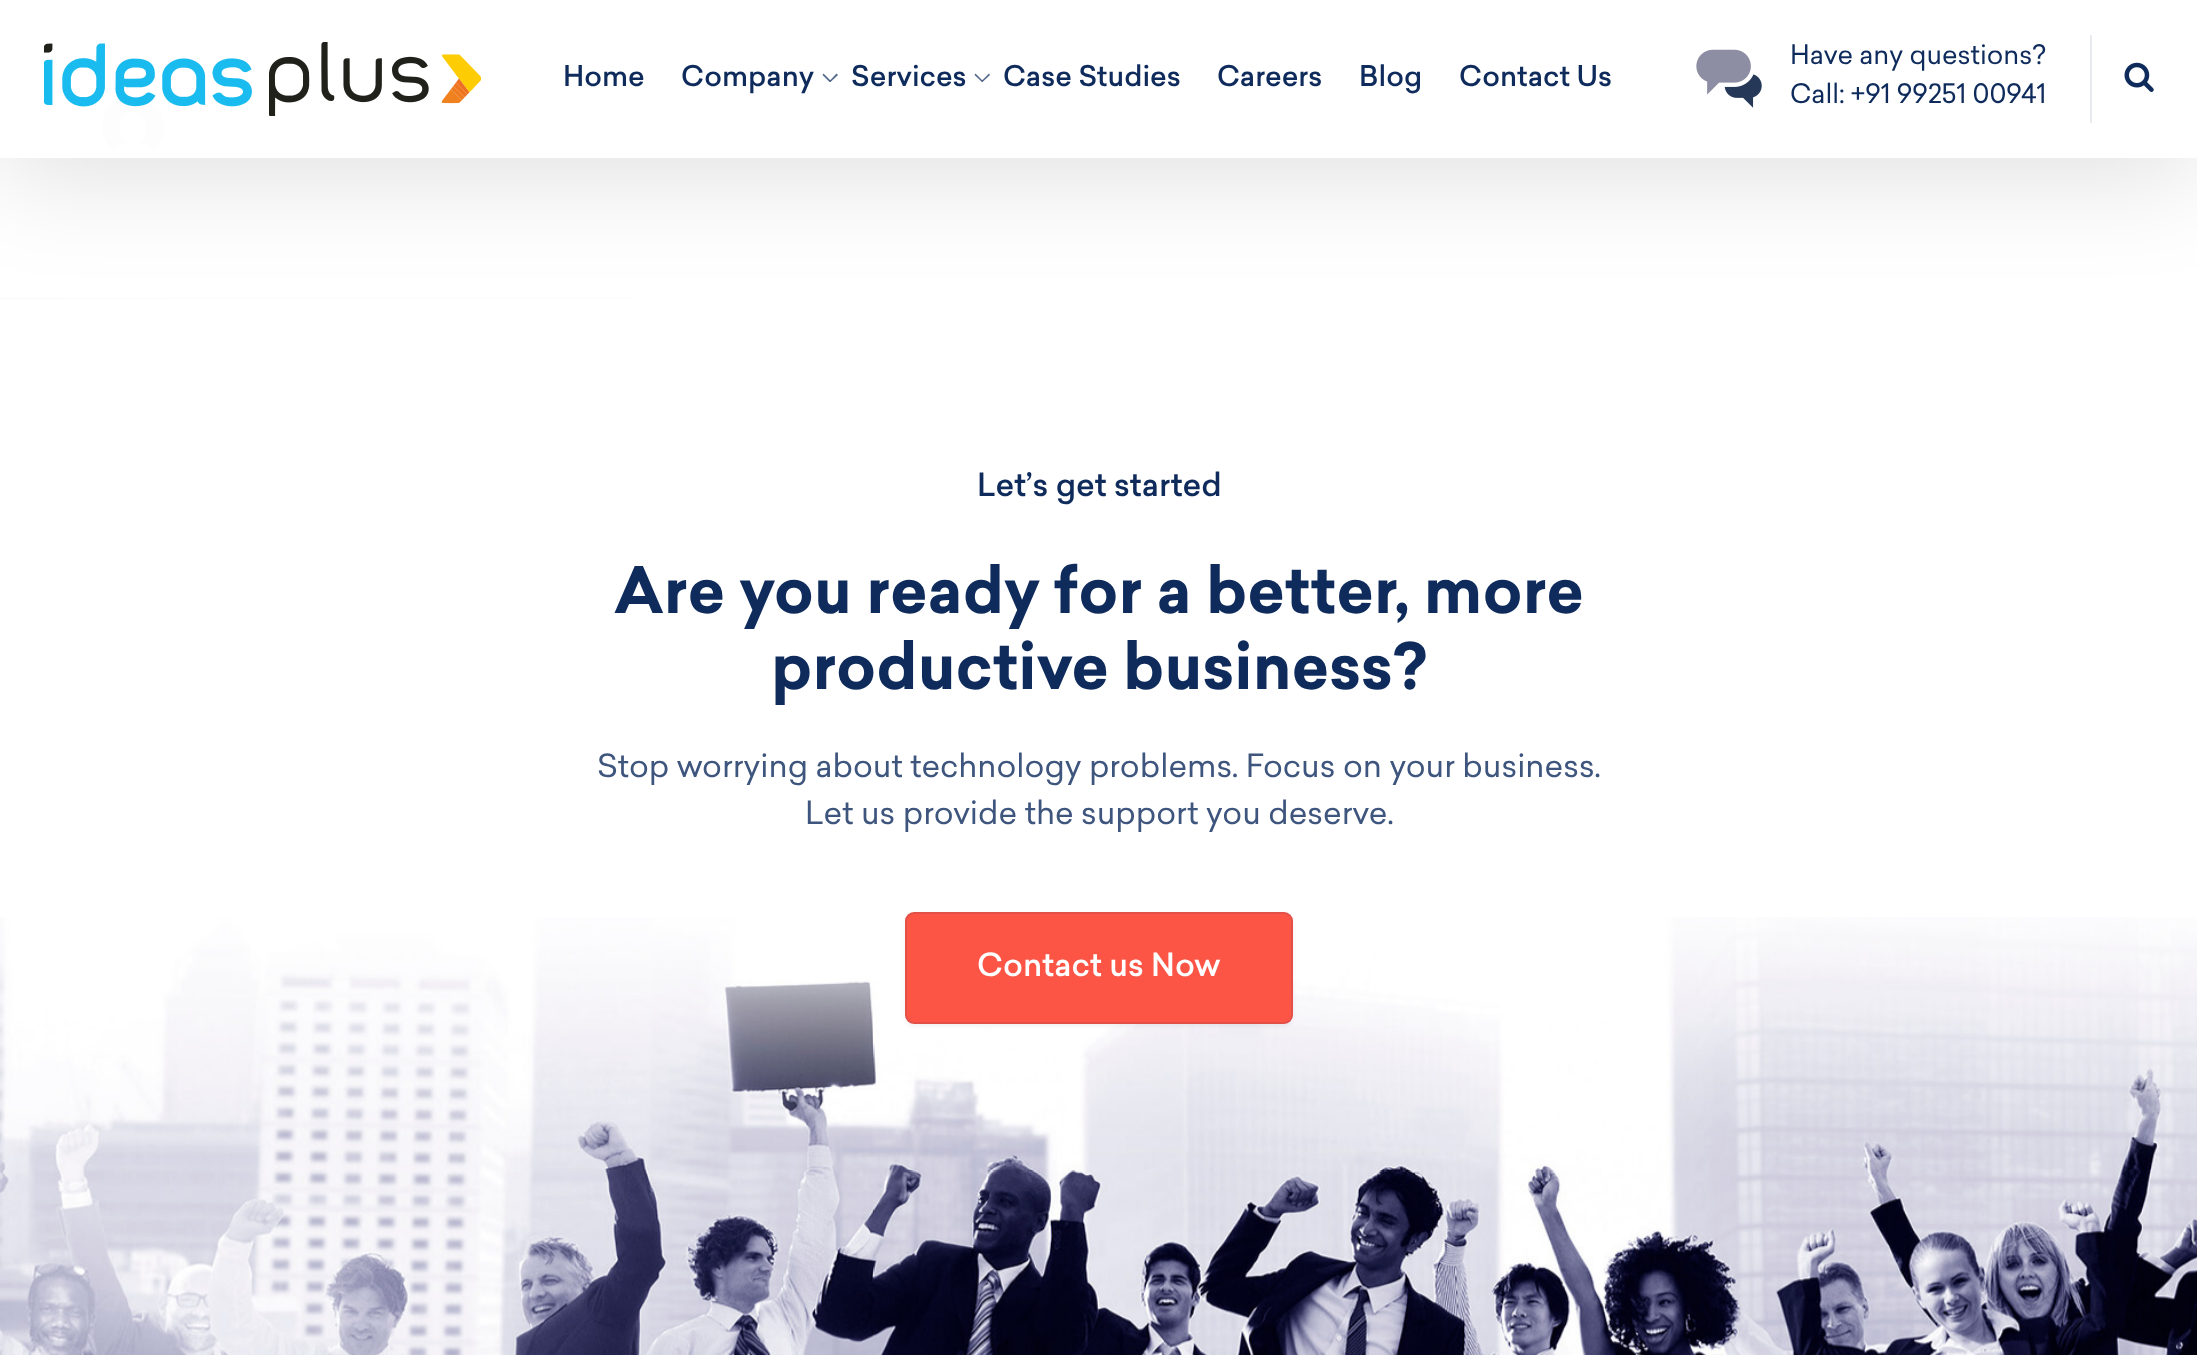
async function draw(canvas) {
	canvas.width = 2197;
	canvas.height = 1355;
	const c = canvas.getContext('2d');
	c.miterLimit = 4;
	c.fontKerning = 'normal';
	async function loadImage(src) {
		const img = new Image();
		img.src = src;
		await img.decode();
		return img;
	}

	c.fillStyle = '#fff';
	c.fillRect(0, 0, 2197, 1355);
	c.drawImage(await loadImage('img4.png'), 101, 95, 64, 57);
	c.drawImage(await loadImage('img5.png'), 0, 298, 631, 1);
	c.save();
	c.beginPath();
	c.moveTo(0, 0);
	c.lineTo(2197, 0);
	c.lineTo(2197, 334);
	c.lineTo(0, 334);
	c.closePath();
	c.moveTo(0, 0);
	c.lineTo(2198, 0);
	c.lineTo(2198, 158);
	c.lineTo(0, 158);
	c.closePath();
	c.clip('evenodd');
	c.fillStyle = '#0000001f';
	c.filter = 'blur(52.5px)';
	c.beginPath();
	c.rect(0, 18, 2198, 157);
	c.fill();
	c.filter = 'none';
	c.restore();
	c.fillStyle = '#fffffff7';
	c.fillRect(0, 95, 2197, 63);
	c.drawImage(await loadImage('img1.png'), 44, 42, 437, 74);
	c.font = '500 28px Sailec';
	c.fillStyle = '#0e2b5c';
	c.fillText('Home', 563, 86);
	c.fillText('Company', 681, 86);
	c.fillStyle = '#566b8d';
	c.beginPath();
	c.moveTo(823.5, 73.5);
	c.lineTo(831, 81);
	c.lineTo(829.5, 82);
	c.lineTo(822.5, 75);
	c.closePath();
	c.fill();
	c.fillStyle = '#0e2b5cb3';
	c.beginPath();
	c.moveTo(829.5, 81);
	c.lineTo(836.5, 73.5);
	c.lineTo(838, 75);
	c.lineTo(830.5, 82);
	c.closePath();
	c.fill();
	c.fillStyle = '#0e2b5c';
	c.fillText('Services', 851, 86);
	c.fillStyle = '#566b8d';
	c.beginPath();
	c.moveTo(975.5, 73.5);
	c.lineTo(983, 81);
	c.lineTo(982, 82);
	c.lineTo(974.5, 75);
	c.closePath();
	c.fill();
	c.fillStyle = '#0e2b5cb3';
	c.beginPath();
	c.moveTo(981.5, 81);
	c.lineTo(989, 73.5);
	c.lineTo(990, 75);
	c.lineTo(982.5, 82);
	c.closePath();
	c.fill();
	c.fillStyle = '#0e2b5c';
	for (const [text, x, y] of [
		['Case Studies', 1003, 86],
		['Careers', 1217, 86],
		['Blog', 1359, 86],
		['Contact Us', 1459, 86],
	]) {
		c.fillText(text, x, y);
	}
	c.drawImage(await loadImage('img2.png'), 1696, 49, 66, 59);
	c.font = '26.25px Sailec';
	c.fillText('Have any questions?', 1790, 64);
	c.fillText('Call: +91 99251 00941', 1790, 103);
	c.fillStyle = '#e7ebef';
	c.fillRect(2090, 35, 2, 88);
	c.drawImage(await loadImage('img3.png'), 2124, 62, 30, 30);
	c.drawImage(await loadImage('img6.png'), 0, 917, 2197, 438);
	c.font = '500 31.5px Sailec';
	c.fillStyle = '#0e2b5c';
	c.fillText('Let’s get started', 977, 496);
	c.font = 'bold 63px Sailec';
	c.fillText('Are you ready for a better, more', 614, 613);
	c.fillText('productive business?', 771, 689);
	c.font = '31.5px Sailec';
	c.fillStyle = '#3e557d';
	c.fillText('Stop worrying about technology problems. Focus on your business.', 597, 777);
	c.fillText('Let us provide the support you deserve.', 805, 824);
	c.fillStyle = '#0000000f';
	c.filter = 'blur(2px)';
	c.beginPath();
	c.roundRect(905, 914, 388, 112, 9);
	c.fill();
	c.filter = 'none';
	c.fillStyle = '#fc5546';
	c.beginPath();
	c.roundRect(905, 912, 388, 112, 9);
	c.fill();
	c.beginPath();
	c.roundRect(906, 913, 386, 110, 8);
	c.strokeStyle = '#0e2b5c1a';
	c.lineWidth = 2;
	c.stroke();
	c.font = '500 31.5px Sailec';
	c.fillStyle = '#fff';
	c.fillText('Contact us Now', 977, 976);
}

draw(document.querySelector('canvas'));
